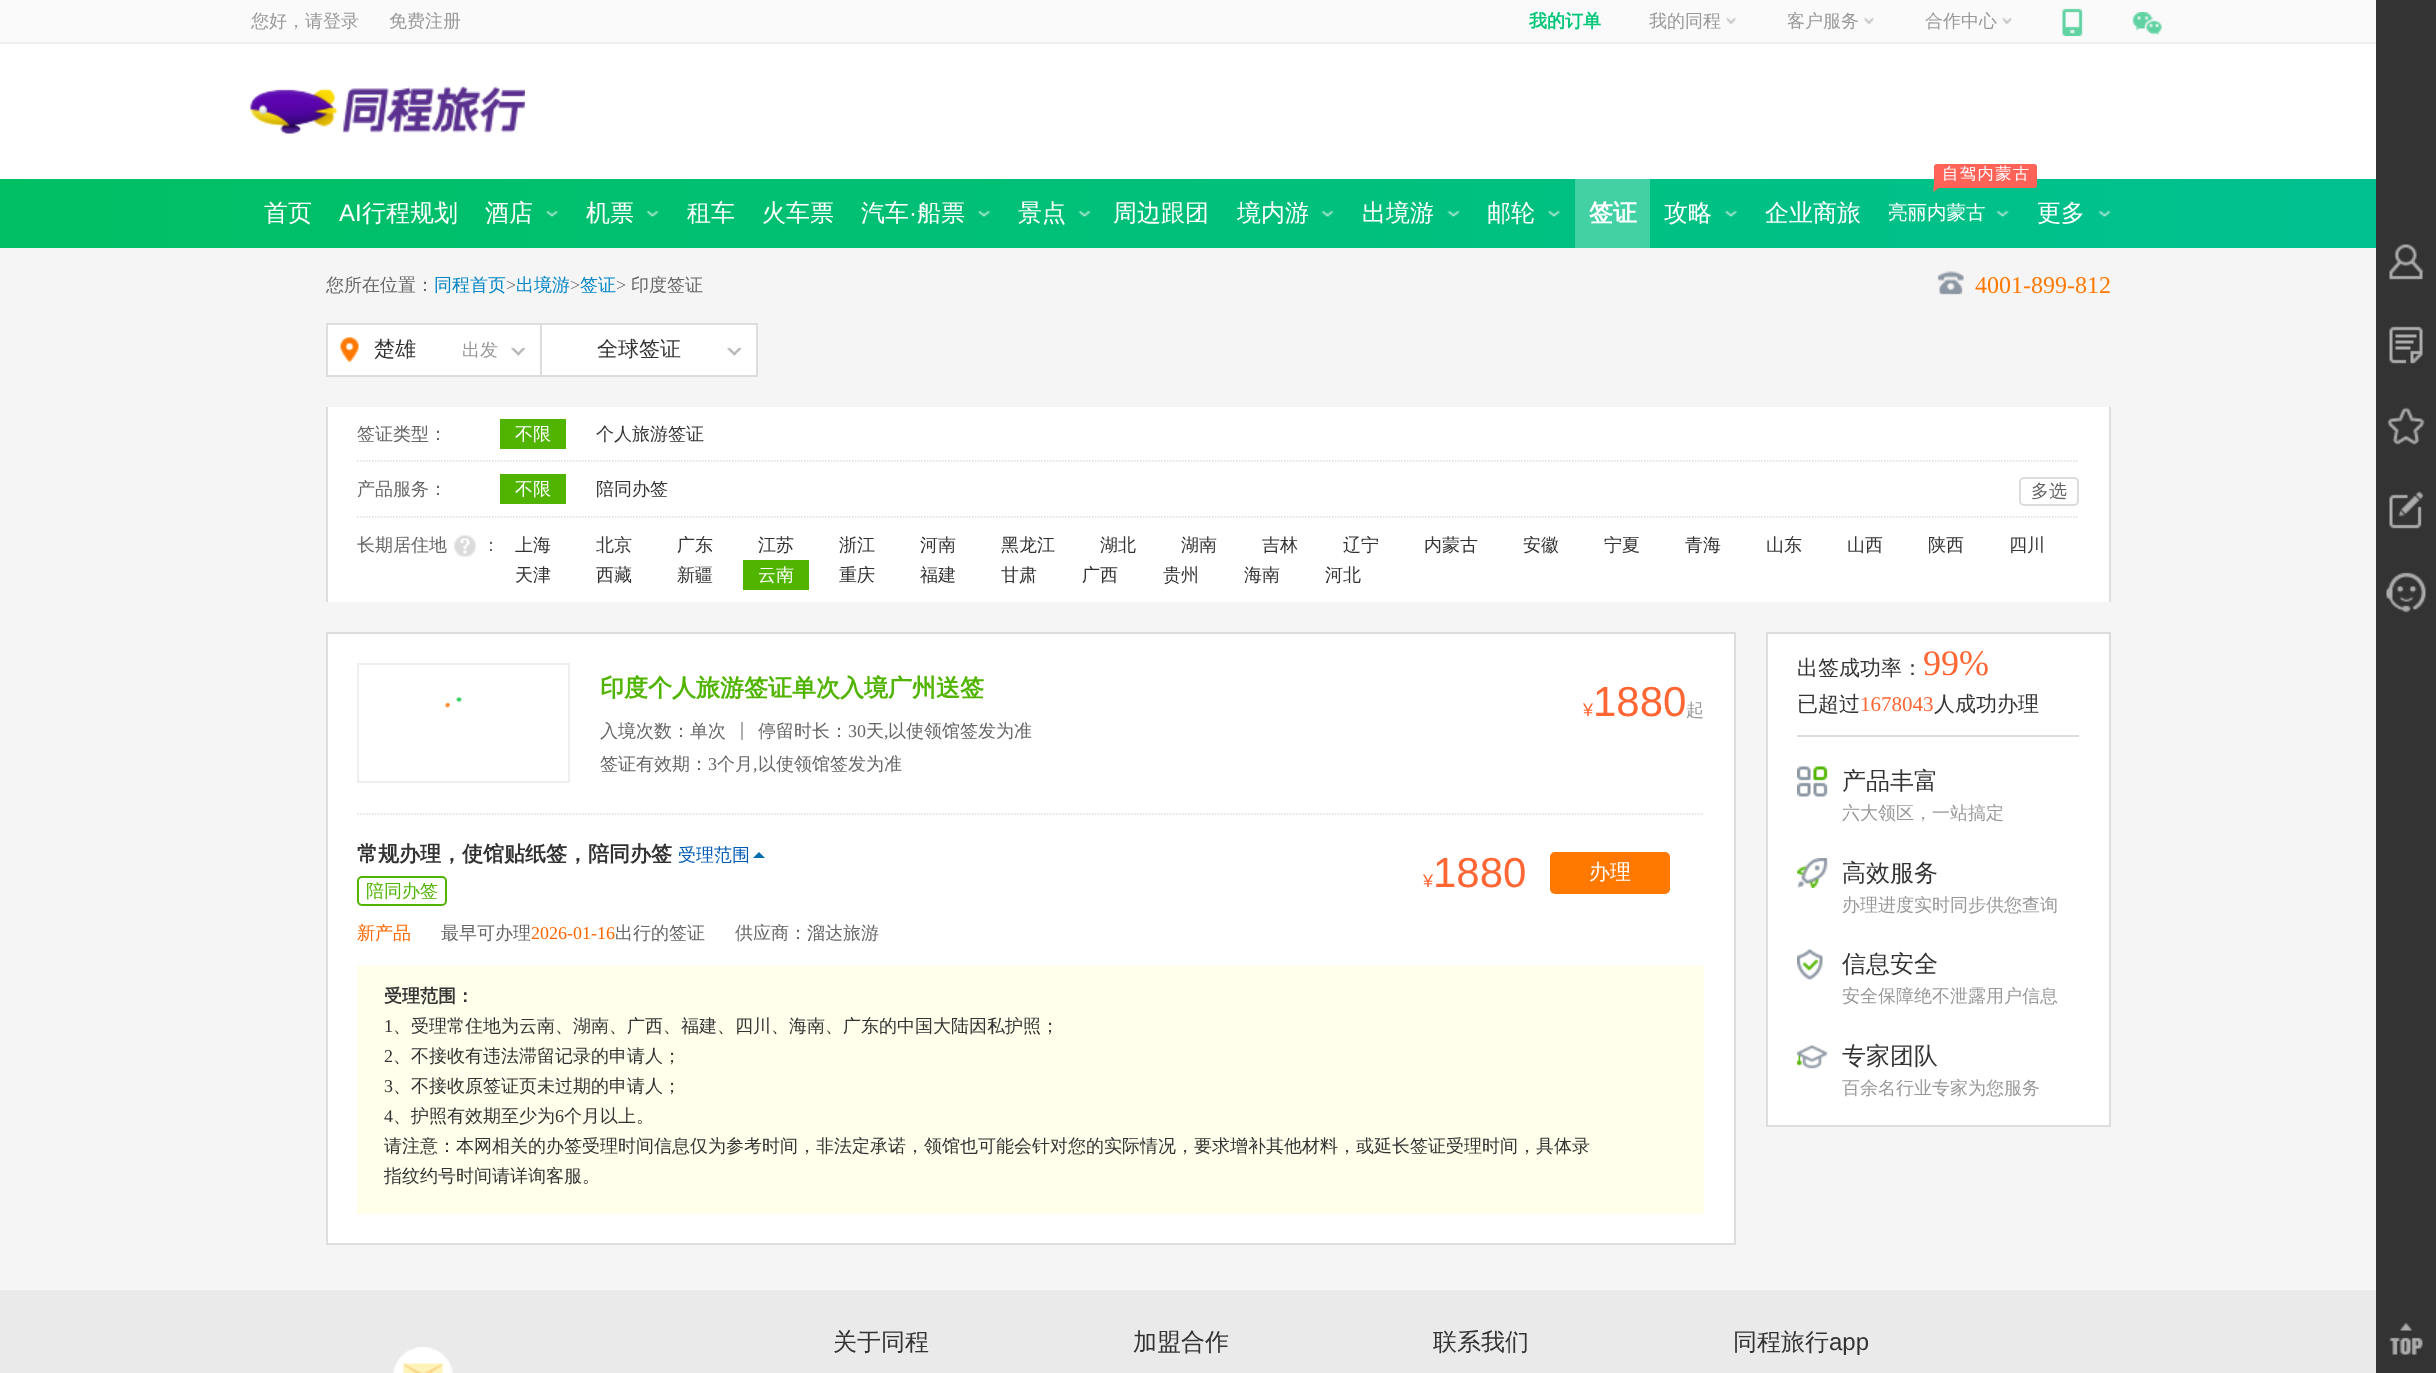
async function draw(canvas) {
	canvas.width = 2436;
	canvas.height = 1373;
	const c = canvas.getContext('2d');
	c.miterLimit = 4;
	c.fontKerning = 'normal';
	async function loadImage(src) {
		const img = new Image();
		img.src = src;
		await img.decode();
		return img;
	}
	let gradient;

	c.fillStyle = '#f5f5f5';
	c.fillRect(0, 0, 2436, 1373);
	for (const [x, y, w, h, color] of [
		[0, 44, 2376, 135, '#fff'],
		[0, 0, 2376, 42, '#fafafa'],
		[0, 42, 2376, 2, '#eee'],
	]) {
		c.fillStyle = color;
		c.fillRect(x, y, w, h);
	}
	c.font = '500 18px WenQuanYi Zen Hei';
	c.fillStyle = '#999';
	c.fillText('您好，请登录', 251, 27);
	c.fillText('免费注册', 389, 27);
	c.font = 'bold 18px WenQuanYi Zen Hei';
	c.fillStyle = '#00c777';
	c.fillText('我的订单', 1529, 27);
	c.font = '500 18px WenQuanYi Zen Hei';
	c.fillStyle = '#999';
	c.fillText('我的同程', 1649, 27);
	c.drawImage(await loadImage('img1.png'), 1726, 17, 10, 7);
	c.fillText('客户服务', 1787, 27);
	c.drawImage(await loadImage('img1.png'), 1864, 17, 10, 7);
	c.fillText('合作中心', 1925, 27);
	c.drawImage(await loadImage('img1.png'), 2002, 17, 10, 7);
	c.drawImage(await loadImage('img2.png'), 2062, 8, 21, 28);
	c.drawImage(await loadImage('img3.png'), 2132, 12, 30, 23);
	c.drawImage(await loadImage('img4.png'), 250, 86, 275, 48);
	gradient = c.createLinearGradient(0, 213, 2436, 213);
	gradient.addColorStop(0, '#00bf63');
	gradient.addColorStop(1, '#01c192');
	c.fillStyle = gradient;
	c.fillRect(0, 179, 2376, 69);
	c.font = '500 24px WenQuanYi Zen Hei';
	c.fillStyle = '#fff';
	c.fillText('首页', 264, 221);
	c.font = '24px Liberation Sans';
	c.fillText('AI', 339, 221);
	c.font = '500 24px WenQuanYi Zen Hei';
	c.fillText('行程规划', 362, 221);
	c.fillText('酒店', 485, 221);
	c.drawImage(await loadImage('img5.png'), 545, 210, 14, 8);
	c.fillText('机票', 586, 221);
	c.drawImage(await loadImage('img6.png'), 646, 210, 13, 8);
	for (const [text, x, y] of [
		['租车', 687, 221],
		['火车票', 762, 221],
		['汽车', 861, 221],
	]) {
		c.fillText(text, x, y);
	}
	c.font = '24px Liberation Sans';
	c.fillText('·', 909, 221);
	c.font = '500 24px WenQuanYi Zen Hei';
	c.fillText('船票', 917, 221);
	c.drawImage(await loadImage('img7.png'), 977, 210, 14, 8);
	c.fillText('景点', 1018, 221);
	c.drawImage(await loadImage('img8.png'), 1078, 210, 13, 8);
	c.fillText('周边跟团', 1113, 221);
	c.fillText('境内游', 1237, 221);
	c.drawImage(await loadImage('img9.png'), 1321, 210, 13, 8);
	c.fillText('出境游', 1362, 221);
	c.drawImage(await loadImage('img10.png'), 1447, 210, 13, 8);
	c.fillText('邮轮', 1487, 221);
	c.drawImage(await loadImage('img11.png'), 1547, 210, 14, 8);
	c.fillStyle = '#43d0a3';
	c.fillRect(1575, 179, 75, 69);
	c.font = 'bold 24px WenQuanYi Zen Hei';
	c.fillStyle = '#fff';
	c.fillText('签证', 1589, 221);
	c.font = '500 24px WenQuanYi Zen Hei';
	c.fillText('攻略', 1664, 221);
	c.drawImage(await loadImage('img12.png'), 1724, 210, 14, 8);
	c.fillText('企业商旅', 1765, 221);
	c.fillStyle = '#ff6257';
	c.beginPath();
	c.roundRect(1934, 164, 103, 24, 3);
	c.fill();
	c.letterSpacing = '1.5px';
	c.font = '500 16.25px WenQuanYi Zen Hei';
	c.fillStyle = '#fff';
	c.fillText('自驾内蒙古', 1942, 179);
	c.fillStyle = '#ff6257';
	c.beginPath();
	c.moveTo(1933.5, 186);
	c.lineTo(1941, 186);
	c.lineTo(1933.5, 192);
	c.closePath();
	c.fill();
	c.letterSpacing = '0px';
	c.font = '500 19.5px WenQuanYi Zen Hei';
	c.fillStyle = '#fff';
	c.fillText('亮丽内蒙古', 1888, 219);
	c.drawImage(await loadImage('img13.png'), 1996, 210, 13, 8);
	c.font = '500 24px WenQuanYi Zen Hei';
	c.fillText('更多', 2037, 221);
	c.drawImage(await loadImage('img14.png'), 2098, 210, 13, 8);
	c.fillStyle = '#333';
	c.fillRect(2376, 0, 60, 1373);
	c.drawImage(await loadImage('img15.png'), 2389, 244, 35, 36);
	c.drawImage(await loadImage('img16.png'), 2389, 326, 34, 38);
	c.drawImage(await loadImage('img17.png'), 2387, 407, 38, 38);
	c.drawImage(await loadImage('img18.png'), 2389, 491, 36, 38);
	c.drawImage(await loadImage('img19.png'), 2386, 572, 40, 41);
	c.drawImage(await loadImage('img20.png'), 2389, 1322, 34, 33);
	c.font = '500 18px WenQuanYi Zen Hei';
	c.fillStyle = '#666';
	c.fillText('您所在位置：', 326, 291);
	c.fillStyle = '#0185c6';
	c.fillText('同程首页', 434, 291);
	c.font = '18px Liberation Serif';
	c.fillStyle = '#666';
	c.fillText('>', 506, 291);
	c.font = '500 18px WenQuanYi Zen Hei';
	c.fillStyle = '#0185c6';
	c.fillText('出境游', 516, 291);
	c.font = '18px Liberation Serif';
	c.fillStyle = '#666';
	c.fillText('>', 570, 291);
	c.font = '500 18px WenQuanYi Zen Hei';
	c.fillStyle = '#0185c6';
	c.fillText('签证', 580, 291);
	c.font = '18px Liberation Serif';
	c.fillStyle = '#666';
	c.fillText('>', 616, 291);
	c.font = '500 18px WenQuanYi Zen Hei';
	c.fillText('印度签证', 631, 291);
	c.drawImage(await loadImage('img21.png'), 1937, 271, 27, 24);
	c.font = '24px Liberation Serif';
	c.fillStyle = '#ff7800';
	c.fillText('4001-899-812', 1975, 293);
	c.fillStyle = '#fff';
	c.fillRect(328, 325, 212, 50);
	c.drawImage(await loadImage('img22.png'), 340, 337, 19, 25);
	c.strokeStyle = '#ddd';
	c.lineWidth = 2;
	c.strokeRect(327, 324, 214, 52);
	c.font = '500 21px WenQuanYi Zen Hei';
	c.fillStyle = '#333';
	c.fillText('楚雄', 374, 356);
	c.font = '500 18px WenQuanYi Zen Hei';
	c.fillStyle = '#999';
	c.fillText('出发', 462, 356);
	c.drawImage(await loadImage('img23.png'), 511, 347, 15, 9);
	for (const [x, y, w, h, color] of [
		[542, 325, 214, 50, '#fff'],
		[542, 323, 216, 2, '#ddd'],
		[756, 323, 2, 54, '#ddd'],
		[542, 375, 216, 2, '#ddd'],
	]) {
		c.fillStyle = color;
		c.fillRect(x, y, w, h);
	}
	c.font = '500 21px WenQuanYi Zen Hei';
	c.fillStyle = '#333';
	c.fillText('全球签证', 597, 356);
	c.drawImage(await loadImage('img24.png'), 727, 347, 15, 9);
	for (const [x, y, w, h, color] of [
		[328, 407, 1781, 195, '#fff'],
		[2109, 407, 2, 195, '#ddd'],
		[326, 407, 2, 195, '#ddd'],
	]) {
		c.fillStyle = color;
		c.fillRect(x, y, w, h);
	}
	c.font = '500 18px WenQuanYi Zen Hei';
	c.fillStyle = '#666';
	c.fillText('签证类型：', 357, 440);
	c.fillStyle = '#50b400';
	c.fillRect(500, 419, 66, 30);
	c.fillStyle = '#fff';
	c.fillText('不限', 515, 440);
	c.fillStyle = '#333';
	c.fillText('个人旅游签证', 596, 440);
	c.beginPath();
	c.moveTo(357, 461);
	c.lineTo(2079, 461);
	c.lineWidth = 1.5;
	c.setLineDash([1.5, 1.5]);
	c.stroke();
	c.fillStyle = '#666';
	c.fillText('产品服务：', 357, 495);
	c.fillStyle = '#50b400';
	c.fillRect(500, 474, 66, 30);
	c.fillStyle = '#fff';
	c.fillText('不限', 515, 495);
	c.fillStyle = '#333';
	c.fillText('陪同办签', 596, 495);
	c.beginPath();
	c.roundRect(2020, 478, 58, 27, 4);
	c.strokeStyle = '#dcdcdc';
	c.lineWidth = 2;
	c.setLineDash([]);
	c.stroke();
	c.fillStyle = '#666';
	c.fillText('多选', 2031, 497);
	c.beginPath();
	c.moveTo(357, 517);
	c.lineTo(2079, 517);
	c.strokeStyle = '#ddd';
	c.lineWidth = 1.5;
	c.setLineDash([1.5, 1.5]);
	c.stroke();
	c.fillText('长期居住地', 357, 551);
	c.drawImage(await loadImage('img25.png'), 454, 535, 22, 22);
	c.fillText('：', 482, 551);
	c.fillStyle = '#333';
	for (const [text, x, y] of [
		['上海', 515, 551],
		['北京', 596, 551],
		['广东', 677, 551],
		['江苏', 758, 551],
		['浙江', 839, 551],
		['河南', 920, 551],
		['黑龙江', 1001, 551],
		['湖北', 1100, 551],
		['湖南', 1181, 551],
		['吉林', 1262, 551],
		['辽宁', 1343, 551],
		['内蒙古', 1424, 551],
		['安徽', 1523, 551],
		['宁夏', 1604, 551],
		['青海', 1685, 551],
		['山东', 1766, 551],
		['山西', 1847, 551],
		['陕西', 1928, 551],
		['四川', 2009, 551],
		['天津', 515, 581],
		['西藏', 596, 581],
		['新疆', 677, 581],
	]) {
		c.fillText(text, x, y);
	}
	c.fillStyle = '#50b400';
	c.fillRect(743, 560, 66, 30);
	c.fillStyle = '#fff';
	c.fillText('云南', 758, 581);
	c.fillStyle = '#333';
	for (const [text, x, y] of [
		['重庆', 839, 581],
		['福建', 920, 581],
		['甘肃', 1001, 581],
		['广西', 1082, 581],
		['贵州', 1163, 581],
		['海南', 1244, 581],
		['河北', 1325, 581],
	]) {
		c.fillText(text, x, y);
	}
	c.fillStyle = '#fff';
	c.beginPath();
	c.rect(327, 633, 1408, 611);
	c.fill();
	c.lineWidth = 2;
	c.setLineDash([]);
	c.stroke();
	c.drawImage(await loadImage('img26.png'), 444, 697, 18, 11);
	c.strokeStyle = '#efefef';
	c.strokeRect(358, 664, 211, 118);
	c.font = 'bold 24px WenQuanYi Zen Hei';
	c.fillStyle = '#50b400';
	c.fillText('印度个人旅游签证单次入境广州送签', 600, 696);
	c.fillStyle = '#adadad';
	c.fillRect(741, 722, 2, 18);
	c.font = '500 18px WenQuanYi Zen Hei';
	c.fillStyle = '#666';
	c.fillText('入境次数：单次', 600, 737);
	c.fillText('停留时长：', 758, 737);
	c.font = '18px Liberation Serif';
	c.fillText('30', 848, 737);
	c.font = '500 18px WenQuanYi Zen Hei';
	c.fillText('天', 866, 737);
	c.font = '18px Liberation Serif';
	c.fillText(',', 884, 737);
	c.font = '500 18px WenQuanYi Zen Hei';
	c.fillText('以使领馆签发为准', 888, 737);
	c.fillText('签证有效期：', 600, 770);
	c.font = '18px Liberation Serif';
	c.fillText('3', 708, 770);
	c.font = '500 18px WenQuanYi Zen Hei';
	c.fillText('个月', 717, 770);
	c.font = '18px Liberation Serif';
	c.fillText(',', 753, 770);
	c.font = '500 18px WenQuanYi Zen Hei';
	c.fillText('以使领馆签发为准', 758, 770);
	c.font = '18px Liberation Sans';
	c.fillStyle = '#f63';
	c.fillText('¥', 1583, 716);
	c.font = '42px Liberation Sans';
	c.fillText('1880', 1593, 716);
	c.font = '500 18px WenQuanYi Zen Hei';
	c.fillStyle = '#999';
	c.fillText('起', 1686, 716);
	c.beginPath();
	c.moveTo(357, 814);
	c.lineTo(1704, 814);
	c.strokeStyle = '#ddd';
	c.lineWidth = 1.5;
	c.setLineDash([1.5, 1.5]);
	c.stroke();
	c.font = 'bold 21px WenQuanYi Zen Hei';
	c.fillStyle = '#333';
	c.fillText('常规办理，使馆贴纸签，陪同办签', 357, 861);
	c.font = '500 18px WenQuanYi Zen Hei';
	c.fillStyle = '#005bb5';
	c.fillText('受理范围', 678, 861);
	c.fillStyle = '#006dae';
	c.beginPath();
	c.moveTo(765, 858);
	c.lineTo(753, 858);
	c.lineTo(759, 852);
	c.closePath();
	c.fill();
	c.beginPath();
	c.roundRect(358, 877, 88, 28, 4);
	c.strokeStyle = '#50b400';
	c.lineWidth = 2;
	c.setLineDash([]);
	c.stroke();
	c.fillStyle = '#50b400';
	c.fillText('陪同办签', 366, 897);
	c.fillStyle = '#f60';
	c.fillText('新产品', 357, 939);
	c.fillStyle = '#666';
	c.fillText('最早可办理', 441, 939);
	c.font = '18px Liberation Serif';
	c.fillStyle = '#f60';
	c.fillText('2026-01-16', 531, 939);
	c.font = '500 18px WenQuanYi Zen Hei';
	c.fillStyle = '#666';
	c.fillText('出行的签证', 615, 939);
	c.fillText('供应商：溜达旅游', 735, 939);
	c.font = '18px Liberation Sans';
	c.fillStyle = '#f63';
	c.fillText('¥', 1423, 887);
	c.font = '42px Liberation Sans';
	c.fillText('1880', 1433, 887);
	c.fillStyle = '#ff7800';
	c.beginPath();
	c.roundRect(1550, 852, 120, 42, 5);
	c.fill();
	c.font = '500 21px WenQuanYi Zen Hei';
	c.fillStyle = '#fff';
	c.fillText('办理', 1589, 879);
	c.fillStyle = '#ffffeb';
	c.fillRect(357, 966, 1347, 248);
	c.font = 'bold 18px WenQuanYi Zen Hei';
	c.fillStyle = '#333';
	c.fillText('受理范围：', 384, 1002);
	c.font = '18px Liberation Serif';
	c.fillText('1', 384, 1032);
	c.font = '500 18px WenQuanYi Zen Hei';
	c.fillText('、受理常住地为云南、湖南、广西、福建、四川、海南、广东的中国大陆因私护照；', 393, 1032);
	c.font = '18px Liberation Serif';
	c.fillText('2', 384, 1062);
	c.font = '500 18px WenQuanYi Zen Hei';
	c.fillText('、不接收有违法滞留记录的申请人；', 393, 1062);
	c.font = '18px Liberation Serif';
	c.fillText('3', 384, 1092);
	c.font = '500 18px WenQuanYi Zen Hei';
	c.fillText('、不接收原签证页未过期的申请人；', 393, 1092);
	c.font = '18px Liberation Serif';
	c.fillText('4', 384, 1122);
	c.font = '500 18px WenQuanYi Zen Hei';
	c.fillText('、护照有效期至少为', 393, 1122);
	c.font = '18px Liberation Serif';
	c.fillText('6', 555, 1122);
	c.font = '500 18px WenQuanYi Zen Hei';
	for (const [text, x, y] of [
		['个月以上。', 564, 1122],
		['请注意：本网相关的办签受理时间信息仅为参考时间，非法定承诺，领馆也可能会针对您的实际情况，要求增补其他材料，或延长签证受理时间，具体录', 384, 1152],
		['指纹约号时间请详询客服。', 384, 1182],
	]) {
		c.fillText(text, x, y);
	}
	c.fillStyle = '#fff';
	c.beginPath();
	c.rect(1767, 633, 343, 493);
	c.fill();
	c.strokeStyle = '#ddd';
	c.stroke();
	c.fillStyle = '#ddd';
	c.fillRect(1797, 735, 282, 2);
	c.font = '500 21px WenQuanYi Zen Hei';
	c.fillStyle = '#333';
	c.fillText('出签成功率：', 1797, 675);
	c.font = '36px Liberation Serif';
	c.fillStyle = '#f63';
	c.fillText('99%', 1923, 675);
	c.font = '500 21px WenQuanYi Zen Hei';
	c.fillStyle = '#333';
	c.fillText('已超过', 1797, 711);
	c.font = '21px Liberation Serif';
	c.fillStyle = '#f63';
	c.fillText('1678043', 1860, 711);
	c.font = '500 21px WenQuanYi Zen Hei';
	c.fillStyle = '#333';
	c.fillText('人成功办理', 1934, 711);
	c.drawImage(await loadImage('img27.png'), 1797, 766, 31, 31);
	c.font = '500 24px WenQuanYi Zen Hei';
	c.fillText('产品丰富', 1842, 789);
	c.font = '500 18px WenQuanYi Zen Hei';
	c.fillStyle = '#999';
	c.fillText('六大领区，一站搞定', 1842, 819);
	c.drawImage(await loadImage('img28.png'), 1797, 858, 31, 30);
	c.font = '500 24px WenQuanYi Zen Hei';
	c.fillStyle = '#333';
	c.fillText('高效服务', 1842, 881);
	c.font = '500 18px WenQuanYi Zen Hei';
	c.fillStyle = '#999';
	c.fillText('办理进度实时同步供您查询', 1842, 911);
	c.drawImage(await loadImage('img29.png'), 1797, 949, 26, 31);
	c.font = '500 24px WenQuanYi Zen Hei';
	c.fillStyle = '#333';
	c.fillText('信息安全', 1842, 972);
	c.font = '500 18px WenQuanYi Zen Hei';
	c.fillStyle = '#999';
	c.fillText('安全保障绝不泄露用户信息', 1842, 1002);
	c.drawImage(await loadImage('img30.png'), 1797, 1045, 31, 24);
	c.font = '500 24px WenQuanYi Zen Hei';
	c.fillStyle = '#333';
	c.fillText('专家团队', 1842, 1064);
	c.font = '500 18px WenQuanYi Zen Hei';
	c.fillStyle = '#999';
	c.fillText('百余名行业专家为您服务', 1842, 1094);
	c.fillStyle = '#eaeaea';
	c.fillRect(0, 1290, 2376, 83);
	c.font = '500 24px WenQuanYi Zen Hei';
	c.fillStyle = '#333';
	for (const [text, x, y] of [
		['关于同程', 833, 1350],
		['加盟合作', 1133, 1350],
		['联系我们', 1433, 1350],
		['同程旅行', 1733, 1350],
	]) {
		c.fillText(text, x, y);
	}
	c.font = '24px Liberation Sans';
	c.fillText('app', 1829, 1350);
	c.drawImage(await loadImage('img31.png'), 393, 1347, 60, 26);
}

draw(document.querySelector('canvas'));
